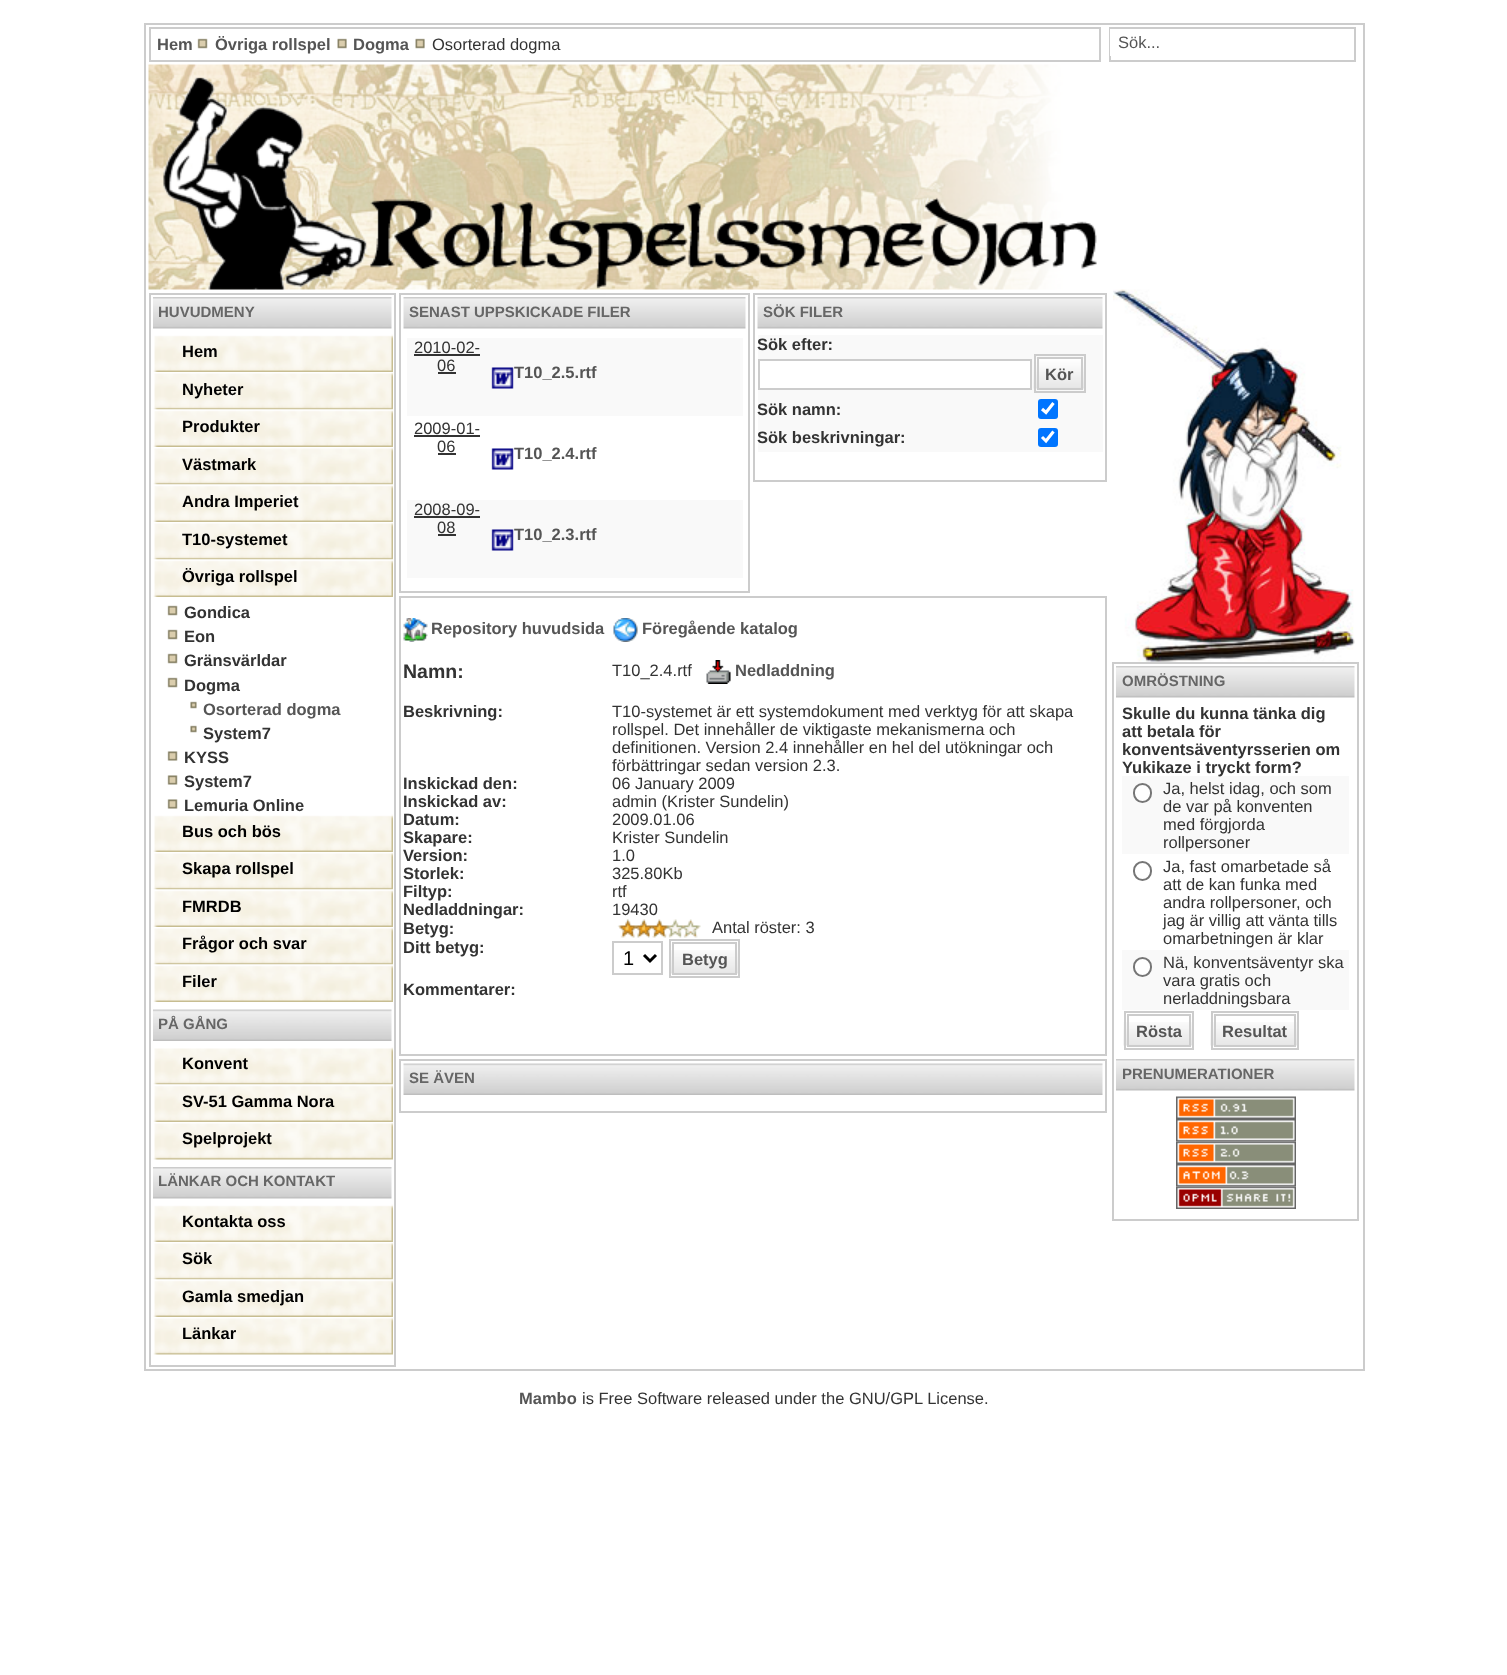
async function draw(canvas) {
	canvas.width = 1507;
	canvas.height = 1675;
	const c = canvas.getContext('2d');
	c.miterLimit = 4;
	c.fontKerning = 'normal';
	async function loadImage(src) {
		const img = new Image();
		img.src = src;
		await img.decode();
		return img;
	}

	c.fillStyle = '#fff';
	c.fillRect(0, 0, 1507, 1675);
	c.strokeStyle = '#ccc';
	c.lineWidth = 2;
	c.strokeRect(145, 24, 1219, 1346);
	c.strokeRect(150, 28, 950, 33);
	c.font = 'bold 16.5px Liberation Sans';
	c.fillStyle = '#555';
	c.fillText('Hem', 157, 50);
	c.drawImage(await loadImage('img1.png'), 197, 38, 11, 11);
	c.fillText('Övriga rollspel', 215, 50);
	c.drawImage(await loadImage('img2.png'), 337, 38, 10, 11);
	c.fillText('Dogma', 353, 50);
	c.drawImage(await loadImage('img2.png'), 415, 38, 10, 11);
	c.font = '16.5px Liberation Sans';
	c.fillStyle = '#333';
	c.fillText('Osorterad dogma', 432, 50);
	c.drawImage(await loadImage('img3.png'), 148, 64, 949, 226);
	c.strokeRect(150, 294, 245, 1072);
	c.drawImage(await loadImage('img4.png'), 153, 297, 239, 32);
	c.font = 'bold 15px Liberation Sans';
	c.fillStyle = '#666';
	c.fillText('HUVUDMENY', 158, 317);
	c.drawImage(await loadImage('img5.png'), 153, 334, 240, 38);
	c.font = 'bold 16.5px Liberation Sans';
	c.fillStyle = '#000';
	c.fillText('Hem', 182, 357);
	c.drawImage(await loadImage('img6.png'), 153, 372, 240, 38);
	c.fillText('Nyheter', 182, 395);
	c.drawImage(await loadImage('img7.png'), 153, 409, 240, 38);
	c.fillText('Produkter', 182, 432);
	c.drawImage(await loadImage('img6.png'), 153, 447, 240, 38);
	c.fillText('Västmark', 182, 470);
	c.drawImage(await loadImage('img7.png'), 153, 484, 240, 38);
	c.fillText('Andra Imperiet', 182, 507);
	c.drawImage(await loadImage('img6.png'), 153, 522, 240, 38);
	c.fillText('T10-systemet', 182, 545);
	c.drawImage(await loadImage('img7.png'), 153, 559, 240, 38);
	c.fillText('Övriga rollspel', 182, 582);
	c.drawImage(await loadImage('img8.png'), 167, 605, 11, 11);
	c.fillStyle = '#333';
	c.fillText('Gondica', 184, 618);
	c.drawImage(await loadImage('img8.png'), 167, 629, 11, 11);
	c.fillText('Eon', 184, 642);
	c.drawImage(await loadImage('img8.png'), 167, 653, 11, 11);
	c.fillText('Gränsvärldar', 184, 666);
	c.drawImage(await loadImage('img8.png'), 167, 677, 11, 11);
	c.fillText('Dogma', 184, 691);
	c.drawImage(await loadImage('img9.png'), 190, 701, 7, 8);
	c.fillStyle = '#555';
	c.fillText('Osorterad dogma', 203, 715);
	c.drawImage(await loadImage('img9.png'), 190, 725, 7, 8);
	c.fillStyle = '#333';
	c.fillText('System7', 203, 739);
	c.drawImage(await loadImage('img10.png'), 167, 751, 11, 10);
	c.fillText('KYSS', 184, 763);
	c.drawImage(await loadImage('img10.png'), 167, 775, 11, 10);
	c.fillText('System7', 184, 787);
	c.drawImage(await loadImage('img10.png'), 167, 799, 11, 10);
	c.fillText('Lemuria Online', 184, 811);
	c.drawImage(await loadImage('img5.png'), 153, 814, 240, 38);
	c.fillStyle = '#000';
	c.fillText('Bus och bös', 182, 837);
	c.drawImage(await loadImage('img6.png'), 153, 852, 240, 38);
	c.fillText('Skapa rollspel', 182, 874);
	c.drawImage(await loadImage('img7.png'), 153, 889, 240, 38);
	c.fillText('FMRDB', 182, 912);
	c.drawImage(await loadImage('img6.png'), 153, 927, 240, 38);
	c.fillText('Frågor och svar', 182, 949);
	c.drawImage(await loadImage('img7.png'), 153, 964, 240, 38);
	c.fillText('Filer', 182, 987);
	c.drawImage(await loadImage('img11.png'), 153, 1009, 239, 32);
	c.font = 'bold 15px Liberation Sans';
	c.fillStyle = '#666';
	c.fillText('PÅ GÅNG', 158, 1029);
	c.drawImage(await loadImage('img6.png'), 153, 1047, 240, 38);
	c.font = 'bold 16.5px Liberation Sans';
	c.fillStyle = '#000';
	c.fillText('Konvent', 182, 1069);
	c.drawImage(await loadImage('img7.png'), 153, 1084, 240, 38);
	c.fillText('SV-51 Gamma Nora', 182, 1107);
	c.drawImage(await loadImage('img6.png'), 153, 1122, 240, 38);
	c.fillText('Spelprojekt', 182, 1144);
	c.drawImage(await loadImage('img12.png'), 153, 1167, 239, 32);
	c.font = 'bold 15px Liberation Sans';
	c.fillStyle = '#666';
	c.fillText('LÄNKAR OCH KONTAKT', 158, 1186);
	c.drawImage(await loadImage('img5.png'), 153, 1204, 240, 38);
	c.font = 'bold 16.5px Liberation Sans';
	c.fillStyle = '#000';
	c.fillText('Kontakta oss', 182, 1227);
	c.drawImage(await loadImage('img6.png'), 153, 1242, 240, 38);
	c.fillText('Sök', 182, 1264);
	c.drawImage(await loadImage('img7.png'), 153, 1279, 240, 38);
	c.fillText('Gamla smedjan', 182, 1302);
	c.drawImage(await loadImage('img6.png'), 153, 1317, 240, 38);
	c.fillText('Länkar', 182, 1339);
	c.strokeRect(400, 294, 349, 298);
	c.drawImage(await loadImage('img13.png'), 403, 297, 343, 32);
	c.font = 'bold 15px Liberation Sans';
	c.fillStyle = '#666';
	c.fillText('SENAST UPPSKICKADE FILER', 409, 317);
	c.fillStyle = '#f9f9f9';
	c.fillRect(407, 338, 336, 78);
	c.font = '16.5px Liberation Sans';
	c.fillStyle = '#333';
	c.fillText('2010-02-', 414, 353);
	c.fillRect(414, 354, 66, 2);
	c.fillText('06', 437, 371);
	c.fillRect(438, 372, 18, 2);
	c.drawImage(await loadImage('img14.png'), 491, 367, 23, 22);
	c.font = 'bold 16.5px Liberation Sans';
	c.fillStyle = '#555';
	c.fillText('T10_2.5.rtf', 514, 378);
	c.font = '16.5px Liberation Sans';
	c.fillStyle = '#333';
	c.fillText('2009-01-', 414, 434);
	c.fillRect(414, 435, 66, 2);
	c.fillText('06', 437, 452);
	c.fillRect(438, 453, 18, 2);
	c.drawImage(await loadImage('img15.png'), 491, 448, 23, 22);
	c.font = 'bold 16.5px Liberation Sans';
	c.fillStyle = '#555';
	c.fillText('T10_2.4.rtf', 514, 459);
	c.fillStyle = '#f9f9f9';
	c.fillRect(407, 500, 336, 78);
	c.font = '16.5px Liberation Sans';
	c.fillStyle = '#333';
	c.fillText('2008-09-', 414, 515);
	c.fillRect(414, 516, 66, 2);
	c.fillText('08', 437, 533);
	c.fillRect(438, 534, 18, 2);
	c.drawImage(await loadImage('img14.png'), 491, 529, 23, 22);
	c.font = 'bold 16.5px Liberation Sans';
	c.fillStyle = '#555';
	c.fillText('T10_2.3.rtf', 514, 540);
	c.strokeRect(754, 294, 352, 187);
	c.drawImage(await loadImage('img16.png'), 757, 297, 346, 32);
	c.font = 'bold 15px Liberation Sans';
	c.fillStyle = '#666';
	c.fillText('SÖK FILER', 763, 317);
	c.fillStyle = '#f9f9f9';
	c.fillRect(758, 335, 345, 117);
	c.font = 'bold 16.5px Liberation Sans';
	c.fillStyle = '#333';
	c.fillText('Sök efter:', 757, 350);
	c.fillStyle = '#fff';
	c.beginPath();
	c.rect(759, 360, 272, 29);
	c.fill();
	c.stroke();
	c.drawImage(await loadImage('img17.png'), 1033, 359, 51, 30);
	c.strokeRect(1035, 355, 50, 37);
	c.strokeRect(1038, 358, 44, 31);
	c.fillStyle = '#555';
	c.fillText('Kör', 1045, 380);
	c.fillStyle = '#333';
	c.fillText('Sök namn:', 757, 415);
	c.fillStyle = '#0075ff';
	c.beginPath();
	c.roundRect(1038, 399, 20, 20, 3);
	c.fill();
	c.beginPath();
	c.moveTo(1042, 409);
	c.lineTo(1046, 412.5);
	c.lineTo(1053.5, 403);
	c.strokeStyle = '#fff';
	c.lineWidth = 3.1;
	c.stroke();
	c.fillStyle = '#333';
	c.fillText('Sök beskrivningar:', 757, 443);
	c.fillStyle = '#0075ff';
	c.beginPath();
	c.roundRect(1038, 428, 20, 19, 3);
	c.fill();
	c.beginPath();
	c.moveTo(1042, 437);
	c.lineTo(1046, 441);
	c.lineTo(1053.5, 431.5);
	c.stroke();
	c.strokeStyle = '#ccc';
	c.lineWidth = 2;
	c.strokeRect(400, 597, 706, 458);
	c.drawImage(await loadImage('img18.png'), 403, 618, 25, 24);
	c.fillStyle = '#555';
	c.fillText('Repository huvudsida', 431, 634);
	c.drawImage(await loadImage('img19.png'), 613, 618, 25, 24);
	c.fillText('Föregående katalog', 642, 634);
	c.font = 'bold 19.5px Liberation Sans';
	c.fillStyle = '#333';
	c.fillText('Namn:', 403, 678);
	c.font = '16.5px Liberation Sans';
	c.fillText('T10_2.4.rtf', 612, 676);
	c.drawImage(await loadImage('img20.png'), 706, 660, 25, 24);
	c.font = 'bold 16.5px Liberation Sans';
	c.fillStyle = '#555';
	c.fillText('Nedladdning', 735, 676);
	c.fillStyle = '#333';
	c.fillText('Beskrivning:', 403, 717);
	c.font = '16.5px Liberation Sans';
	for (const [text, x, y] of [
		['T10-systemet är ett systemdokument med verktyg för att skapa', 612, 717],
		['rollspel. Det innehåller de viktigaste mekanismerna och', 612, 735],
		['definitionen. Version 2.4 innehåller en hel del utökningar och', 612, 753],
		['förbättringar sedan version 2.3.', 612, 771],
	]) {
		c.fillText(text, x, y);
	}
	c.font = 'bold 16.5px Liberation Sans';
	c.fillText('Inskickad den:', 403, 789);
	c.font = '16.5px Liberation Sans';
	c.fillText('06 January 2009', 612, 789);
	c.font = 'bold 16.5px Liberation Sans';
	c.fillText('Inskickad av:', 403, 807);
	c.font = '16.5px Liberation Sans';
	c.fillText('admin (Krister Sundelin)', 612, 807);
	c.font = 'bold 16.5px Liberation Sans';
	c.fillText('Datum:', 403, 825);
	c.font = '16.5px Liberation Sans';
	c.fillText('2009.01.06', 612, 825);
	c.font = 'bold 16.5px Liberation Sans';
	c.fillText('Skapare:', 403, 843);
	c.font = '16.5px Liberation Sans';
	c.fillText('Krister Sundelin', 612, 843);
	c.font = 'bold 16.5px Liberation Sans';
	c.fillText('Version:', 403, 861);
	c.font = '16.5px Liberation Sans';
	c.fillText('1.0', 612, 861);
	c.font = 'bold 16.5px Liberation Sans';
	c.fillText('Storlek:', 403, 879);
	c.font = '16.5px Liberation Sans';
	c.fillText('325.80Kb', 612, 879);
	c.font = 'bold 16.5px Liberation Sans';
	c.fillText('Filtyp:', 403, 897);
	c.font = '16.5px Liberation Sans';
	c.fillText('rtf', 612, 897);
	c.font = 'bold 16.5px Liberation Sans';
	c.fillText('Nedladdningar:', 403, 915);
	c.font = '16.5px Liberation Sans';
	c.fillText('19430', 612, 915);
	c.font = 'bold 16.5px Liberation Sans';
	c.fillText('Betyg:', 403, 934);
	c.drawImage(await loadImage('img21.png'), 617, 919, 84, 19);
	c.font = '16.5px Liberation Sans';
	c.fillText('Antal röster: 3', 712, 933);
	c.font = 'bold 16.5px Liberation Sans';
	c.fillText('Ditt betyg:', 403, 953);
	c.strokeRect(613, 942, 49, 32);
	c.beginPath();
	c.moveTo(644, 955);
	c.lineTo(650, 961);
	c.lineTo(656, 955);
	c.strokeStyle = '#000';
	c.lineWidth = 3;
	c.stroke();
	c.font = '20px Liberation Sans';
	c.fillStyle = '#000';
	c.fillText('1', 623, 965);
	c.drawImage(await loadImage('img22.png'), 671, 950, 67, 24);
	c.strokeStyle = '#ccc';
	c.lineWidth = 2;
	c.strokeRect(670, 940, 69, 37);
	c.strokeRect(673, 943, 63, 31);
	c.font = 'bold 16.5px Liberation Sans';
	c.fillStyle = '#555';
	c.fillText('Betyg', 682, 965);
	c.fillStyle = '#333';
	c.fillText('Kommentarer:', 403, 995);
	c.strokeRect(400, 1060, 706, 52);
	c.drawImage(await loadImage('img23.png'), 403, 1063, 700, 32);
	c.font = 'bold 15px Liberation Sans';
	c.fillStyle = '#666';
	c.fillText('SE ÄVEN', 409, 1083);
	c.strokeRect(1110, 28, 245, 33);
	c.fillStyle = '#fff';
	c.fillRect(1110, 29, 1, 27);
	c.font = '16.5px Liberation Sans';
	c.fillStyle = '#555';
	c.fillText('Sök...', 1118, 48);
	c.drawImage(await loadImage('img24.png'), 1113, 289, 242, 373);
	c.strokeRect(1113, 663, 245, 557);
	c.drawImage(await loadImage('img4.png'), 1116, 666, 239, 32);
	c.font = 'bold 15px Liberation Sans';
	c.fillStyle = '#666';
	c.fillText('OMRÖSTNING', 1122, 686);
	c.font = 'bold 16.5px Liberation Sans';
	c.fillStyle = '#333';
	for (const [text, x, y] of [
		['Skulle du kunna tänka dig', 1122, 719],
		['att betala för', 1122, 737],
		['konventsäventyrsserien om', 1122, 755],
	]) {
		c.fillText(text, x, y);
	}
	c.fillStyle = '#f9f9f9';
	c.fillRect(1122, 776, 227, 78);
	c.fillStyle = '#333';
	c.fillText('Yukikaze i tryckt form?', 1122, 773);
	c.fillStyle = '#fff';
	c.beginPath();
	c.roundRect(1134, 784, 17, 18, 8.5);
	c.fill();
	c.strokeStyle = '#767676';
	c.stroke();
	c.font = '16.5px Liberation Sans';
	c.fillStyle = '#333';
	for (const [text, x, y] of [
		['Ja, helst idag, och som', 1163, 794],
		['de var på konventen', 1163, 812],
		['med förgjorda', 1163, 830],
		['rollpersoner', 1163, 848],
	]) {
		c.fillText(text, x, y);
	}
	c.beginPath();
	c.roundRect(1134, 862, 17, 18, 8.5);
	c.stroke();
	for (const [text, x, y] of [
		['Ja, fast omarbetade så', 1163, 872],
		['att de kan funka med', 1163, 890],
		['andra rollpersoner, och', 1163, 908],
		['jag är villig att vänta tills', 1163, 926],
		['omarbetningen är klar', 1163, 944],
	]) {
		c.fillText(text, x, y);
	}
	c.fillStyle = '#f9f9f9';
	c.fillRect(1122, 950, 227, 60);
	c.fillStyle = '#fff';
	c.beginPath();
	c.roundRect(1134, 958, 17, 18, 8.5);
	c.fill();
	c.stroke();
	c.fillStyle = '#333';
	for (const [text, x, y] of [
		['Nä, konventsäventyr ska', 1163, 968],
		['vara gratis och', 1163, 986],
		['nerladdningsbara', 1163, 1004],
	]) {
		c.fillText(text, x, y);
	}
	c.drawImage(await loadImage('img25.png'), 1123, 1022, 69, 24);
	c.strokeStyle = '#ccc';
	c.strokeRect(1125, 1012, 68, 37);
	c.strokeRect(1128, 1015, 62, 31);
	c.font = 'bold 16.5px Liberation Sans';
	c.fillStyle = '#555';
	c.fillText('Rösta', 1136, 1037);
	c.drawImage(await loadImage('img26.png'), 1210, 1022, 87, 24);
	c.strokeRect(1212, 1012, 86, 37);
	c.strokeRect(1215, 1015, 80, 31);
	c.fillText('Resultat', 1222, 1037);
	c.drawImage(await loadImage('img4.png'), 1116, 1059, 239, 32);
	c.font = 'bold 15px Liberation Sans';
	c.fillStyle = '#666';
	c.fillText('PRENUMERATIONER', 1122, 1079);
	c.drawImage(await loadImage('img27.png'), 1176, 1096, 120, 23);
	c.drawImage(await loadImage('img28.png'), 1176, 1119, 120, 23);
	c.drawImage(await loadImage('img29.png'), 1176, 1141, 120, 23);
	c.drawImage(await loadImage('img30.png'), 1176, 1164, 120, 23);
	c.drawImage(await loadImage('img31.png'), 1176, 1186, 120, 23);
	c.font = 'bold 16.5px Liberation Sans';
	c.fillStyle = '#555';
	c.fillText('Mambo', 519, 1404);
	c.font = '16.5px Liberation Sans';
	c.fillStyle = '#333';
	c.fillText('is Free Software released under the GNU/GPL License.', 582, 1404);
}

draw(document.querySelector('canvas'));
